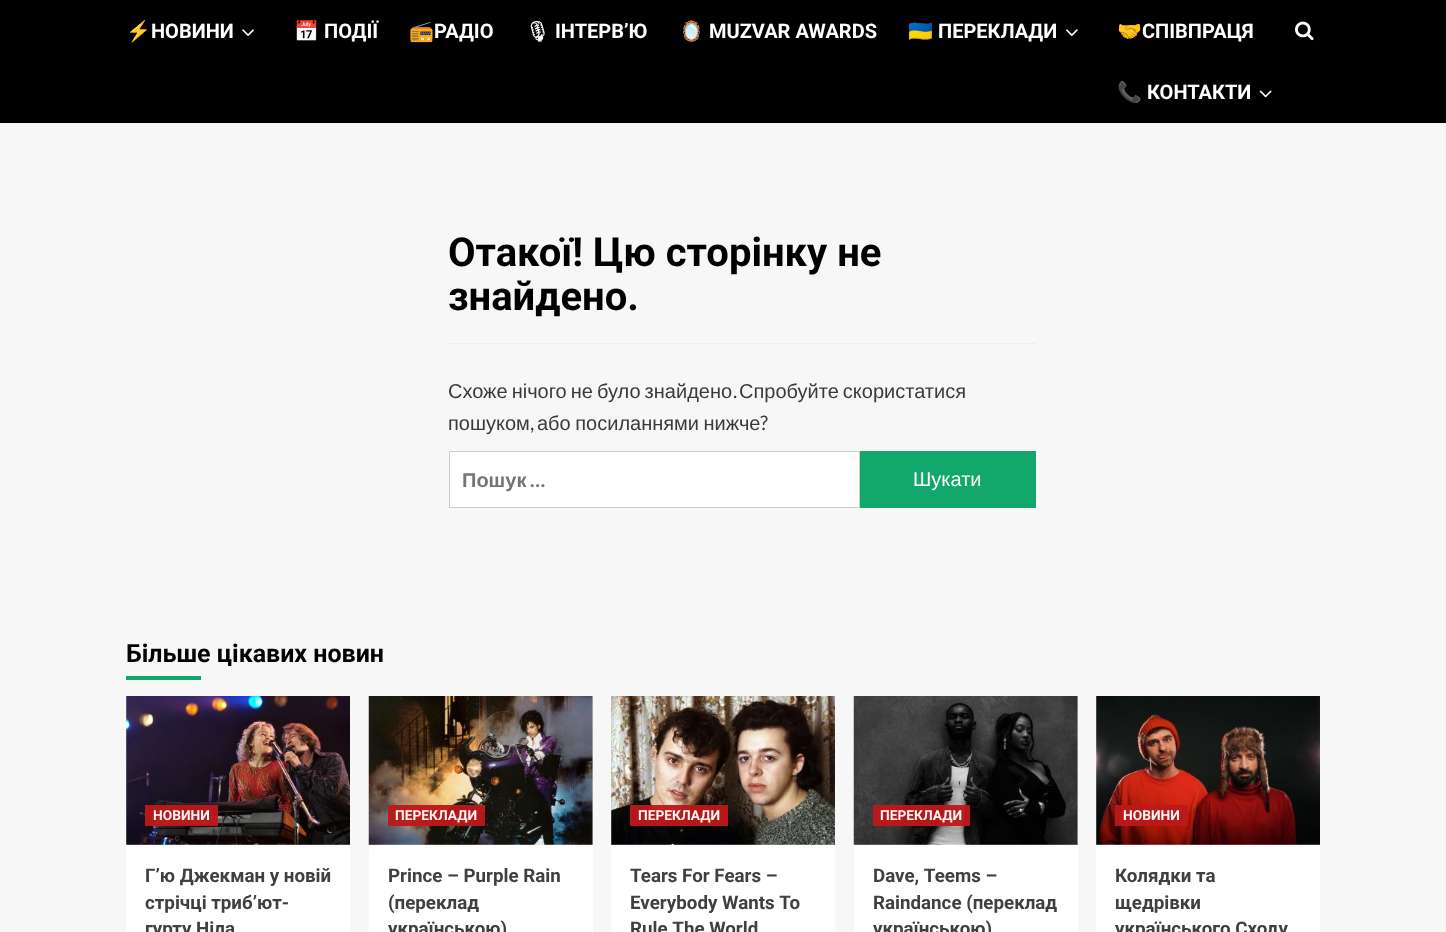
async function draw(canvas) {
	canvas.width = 1446;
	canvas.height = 932;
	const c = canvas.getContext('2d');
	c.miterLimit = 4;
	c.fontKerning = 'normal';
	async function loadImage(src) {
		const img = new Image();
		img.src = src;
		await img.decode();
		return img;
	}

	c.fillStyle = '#f7f7f7';
	c.fillRect(0, 0, 1446, 932);
	c.fillStyle = '#000';
	c.fillRect(0, 0, 1446, 123);
	c.font = 'bold 20px Noto Color Emoji';
	c.fillStyle = '#fff';
	c.fillText('⚡️', 126, 38);
	c.font = 'bold 20px Roboto';
	c.fillText('НОВИНИ', 151, 38);
	c.drawImage(await loadImage('img1.png'), 242, 29, 12, 8);
	c.font = 'bold 20px Noto Color Emoji';
	c.fillText('📅', 294, 38);
	c.font = 'bold 20px Roboto';
	c.fillText('ПОДІЇ', 324, 38);
	c.font = 'bold 20px Noto Color Emoji';
	c.fillText('📻', 409, 38);
	c.font = 'bold 20px Roboto';
	c.fillText('РАДІО', 434, 38);
	c.font = 'bold 20px Noto Emoji';
	c.fillText('🎙', 525, 38);
	c.font = 'bold 20px Roboto';
	c.fillText('ІНТЕРВ’Ю', 555, 38);
	c.font = 'bold 20px Noto Color Emoji';
	c.fillText('🪞', 679, 38);
	c.font = 'bold 20px Roboto';
	c.fillText('MUZVAR AWARDS', 709, 38);
	c.font = 'bold 20px Noto Color Emoji';
	c.fillText('🇺🇦', 908, 38);
	c.font = 'bold 20px Roboto';
	c.fillText('ПЕРЕКЛАДИ', 938, 38);
	c.drawImage(await loadImage('img2.png'), 1065, 29, 13, 8);
	c.font = 'bold 20px Noto Color Emoji';
	c.fillText('🤝', 1117, 38);
	c.font = 'bold 20px Roboto';
	c.fillText('СПІВПРАЦЯ', 1142, 38);
	c.font = 'bold 20px Noto Color Emoji';
	c.fillText('📞', 1117, 99);
	c.font = 'bold 20px Roboto';
	c.fillText('КОНТАКТИ', 1147, 99);
	c.drawImage(await loadImage('img3.png'), 1259, 90, 13, 8);
	c.drawImage(await loadImage('img4.png'), 1295, 21, 19, 20);
	c.fillStyle = '#eee';
	c.fillRect(449, 343, 587, 1);
	c.font = 'bold 40px Roboto';
	c.fillStyle = '#000';
	c.fillText('Отакої! Цю сторінку не', 448, 266);
	c.fillText('знайдено.', 448, 310);
	c.wordSpacing = '-1.5px';
	c.font = '20px Liberation Sans';
	c.fillStyle = '#3a3a3a';
	c.fillText('Схоже нічого не було знайдено', 448, 398);
	c.wordSpacing = '0px';
	c.font = '20px Lato';
	c.fillText('.', 733, 398);
	c.wordSpacing = '-1.5px';
	c.font = '20px Liberation Sans';
	c.fillText('Спробуйте скористатися', 739, 398);
	c.wordSpacing = '0px';
	c.fillText('пошуком', 448, 430);
	c.font = '20px Lato';
	c.fillText(',', 530, 430);
	c.wordSpacing = '-1px';
	c.font = '20px Liberation Sans';
	c.fillText('або посиланнями нижче', 537, 430);
	c.wordSpacing = '0px';
	c.font = '20px Lato';
	c.fillText('?', 760, 430);
	c.fillStyle = '#fff';
	c.beginPath();
	c.rect(449.5, 451.5, 410, 56);
	c.fill();
	c.strokeStyle = '#ccc';
	c.stroke();
	c.font = 'bold 20px Liberation Sans';
	c.fillStyle = '#757575';
	c.fillText('Пошук', 462, 487);
	c.font = 'bold 20px Lato';
	c.fillText('…', 530, 487);
	c.fillStyle = '#12a86b';
	c.fillRect(860, 451, 176, 57);
	c.font = '20px Liberation Sans';
	c.fillStyle = '#fff';
	c.fillText('Шукати', 913, 486);
	c.font = 'bold 25px Roboto';
	c.fillStyle = '#000';
	c.fillText('Більше цікавих новин', 126, 662);
	for (const [x, y, w, h, color] of [
		[126, 676, 75, 4, '#12a86b'],
		[126, 845, 224, 87, '#fff'],
		[126, 696, 224, 149, '#d8d8d8'],
	]) {
		c.fillStyle = color;
		c.fillRect(x, y, w, h);
	}
	c.drawImage(await loadImage('img5.png'), 126, 696, 224, 149);
	c.fillStyle = '#bb1919f5';
	c.fillRect(145, 805, 73, 21);
	c.font = 'bold 13.75px Roboto';
	c.fillStyle = '#fcf6f6';
	c.fillText('НОВИНИ', 153, 820);
	c.font = 'bold 18.75px Roboto';
	c.fillStyle = '#404040';
	for (const [text, x, y] of [
		['Г’ю Джекман у новій', 145, 882],
		['стрічці триб’ют-', 145, 909],
		['гурту Ніла', 145, 935],
	]) {
		c.fillText(text, x, y);
	}
	c.fillStyle = '#fff';
	c.fillRect(369, 845, 224, 87);
	c.fillStyle = '#d8d8d8';
	c.fillRect(369, 696, 224, 149);
	c.drawImage(await loadImage('img6.png'), 368, 696, 225, 149);
	c.fillStyle = '#bb1919f5';
	c.fillRect(388, 805, 97, 21);
	c.font = 'bold 13.75px Roboto';
	c.fillStyle = '#fcf6f6';
	c.fillText('ПЕРЕКЛАДИ', 395, 820);
	c.font = 'bold 18.75px Roboto';
	c.fillStyle = '#404040';
	for (const [text, x, y] of [
		['Prince – Purple Rain', 388, 882],
		['(переклад', 388, 909],
		['українською)', 388, 935],
	]) {
		c.fillText(text, x, y);
	}
	c.fillStyle = '#fff';
	c.fillRect(611, 845, 224, 87);
	c.fillStyle = '#d8d8d8';
	c.fillRect(611, 696, 224, 149);
	c.drawImage(await loadImage('img7.png'), 611, 696, 224, 149);
	c.fillStyle = '#bb1919f5';
	c.fillRect(630, 805, 98, 21);
	c.font = 'bold 13.75px Roboto';
	c.fillStyle = '#fcf6f6';
	c.fillText('ПЕРЕКЛАДИ', 638, 820);
	c.font = 'bold 18.75px Roboto';
	c.fillStyle = '#404040';
	for (const [text, x, y] of [
		['Tears For Fears –', 630, 882],
		['Everybody Wants To', 630, 909],
		['Rule The World', 630, 935],
	]) {
		c.fillText(text, x, y);
	}
	c.fillStyle = '#fff';
	c.fillRect(854, 845, 224, 87);
	c.fillStyle = '#d8d8d8';
	c.fillRect(854, 696, 224, 149);
	c.drawImage(await loadImage('img8.png'), 853, 696, 225, 149);
	c.fillStyle = '#bb1919f5';
	c.fillRect(873, 805, 97, 21);
	c.font = 'bold 13.75px Roboto';
	c.fillStyle = '#fcf6f6';
	c.fillText('ПЕРЕКЛАДИ', 880, 820);
	c.font = 'bold 18.75px Roboto';
	c.fillStyle = '#404040';
	for (const [text, x, y] of [
		['Dave, Teems –', 873, 882],
		['Raindance (переклад', 873, 909],
		['українською)', 873, 935],
	]) {
		c.fillText(text, x, y);
	}
	c.fillStyle = '#fff';
	c.fillRect(1096, 845, 224, 87);
	c.fillStyle = '#d8d8d8';
	c.fillRect(1096, 696, 224, 149);
	c.drawImage(await loadImage('img9.png'), 1096, 696, 224, 149);
	c.fillStyle = '#bb1919f5';
	c.fillRect(1115, 805, 73, 21);
	c.font = 'bold 13.75px Roboto';
	c.fillStyle = '#fcf6f6';
	c.fillText('НОВИНИ', 1123, 820);
	c.font = 'bold 18.75px Roboto';
	c.fillStyle = '#404040';
	for (const [text, x, y] of [
		['Колядки та', 1115, 882],
		['щедрівки', 1115, 909],
		['українського Сходу', 1115, 935],
	]) {
		c.fillText(text, x, y);
	}
}

draw(document.querySelector('canvas'));
